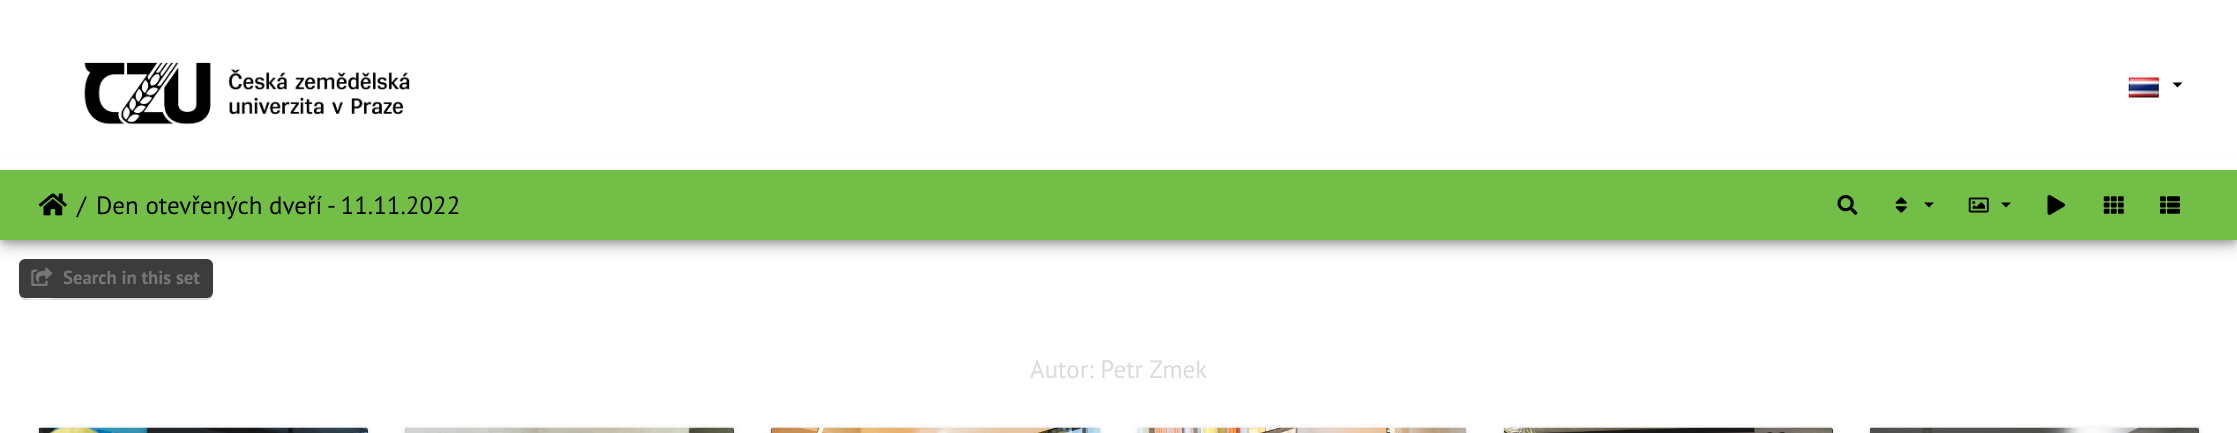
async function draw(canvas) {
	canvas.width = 2237;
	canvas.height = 433;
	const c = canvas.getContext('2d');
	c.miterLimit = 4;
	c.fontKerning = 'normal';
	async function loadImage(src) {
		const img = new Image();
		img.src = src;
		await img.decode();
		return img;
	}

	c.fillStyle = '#fff';
	c.fillRect(0, 0, 2237, 433);
	c.fillStyle = '#00000033';
	c.filter = 'blur(3px)';
	c.beginPath();
	c.rect(1, 175, 2235, 68);
	c.fill();
	c.filter = 'none';
	c.fillStyle = '#dbdbdb';
	c.beginPath();
	c.moveTo(19, 293);
	c.lineTo(19, 294);
	c.bezierCurveTo(19, 297, 22, 300, 25, 300);
	c.lineTo(207, 300);
	c.bezierCurveTo(210, 300, 213, 297, 213, 294);
	c.lineTo(213, 267);
	c.lineTo(212, 265);
	c.lineTo(212, 282);
	c.bezierCurveTo(212, 288, 214, 297, 206, 298);
	c.lineTo(55, 298);
	c.bezierCurveTo(50, 298, 22, 303, 19, 293);
	c.closePath();
	c.fill();
	c.fillStyle = '#3c3c3c';
	c.beginPath();
	c.roundRect(19, 259, 194, 39, 6);
	c.fill();
	c.drawImage(await loadImage('img10.png'), 31, 267, 22, 19);
	c.fillStyle = '#0000001f';
	c.filter = 'blur(11px)';
	c.beginPath();
	c.rect(0, 171, 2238, 70);
	c.fill();
	c.filter = 'none';
	c.fillStyle = '#00000024';
	c.filter = 'blur(6px)';
	c.beginPath();
	c.rect(0, 178, 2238, 70);
	c.fill();
	c.filter = 'none';
	c.fillStyle = '#fff';
	c.fillRect(0, 156, 2237, 14);
	c.drawImage(await loadImage('img1.png'), 84, 62, 326, 63);
	c.drawImage(await loadImage('img2.png'), 2128, 77, 31, 21);
	c.fillStyle = '#000';
	c.beginPath();
	c.moveTo(2172.5, 82.5);
	c.lineTo(2182.5, 82.5);
	c.lineTo(2177.5, 87.5);
	c.closePath();
	c.fill();
	c.fillStyle = '#73be46';
	c.fillRect(0, 170, 2237, 70);
	c.drawImage(await loadImage('img3.png'), 38, 193, 29, 23);
	c.font = '25px PT Sans';
	c.fillStyle = '#000';
	c.fillText('/', 77, 214);
	c.fillText('Den otevřených dveří - 11.11.2022', 96, 214);
	c.drawImage(await loadImage('img4.png'), 1837, 195, 21, 20);
	c.drawImage(await loadImage('img5.png'), 1895, 197, 12, 16);
	c.beginPath();
	c.moveTo(1924, 202.5);
	c.lineTo(1934, 202.5);
	c.lineTo(1929, 207.5);
	c.closePath();
	c.fill();
	c.drawImage(await loadImage('img6.png'), 1968, 197, 21, 16);
	c.beginPath();
	c.moveTo(2001, 202.5);
	c.lineTo(2011, 202.5);
	c.lineTo(2006, 207.5);
	c.closePath();
	c.fill();
	c.drawImage(await loadImage('img7.png'), 2047, 195, 18, 20);
	c.drawImage(await loadImage('img8.png'), 2103, 196, 21, 18);
	c.drawImage(await loadImage('img9.png'), 2160, 196, 20, 18);
	c.font = 'bold 18.75px PT Sans';
	c.fillStyle = '#777';
	c.fillText('Search in this set', 63, 284);
	c.font = '25px PT Sans';
	c.fillStyle = '#dbdbdb';
	c.fillText('Autor: Petr Zmek', 1030, 378);
	c.fillStyle = '#0000001f';
	c.filter = 'blur(3px)';
	c.beginPath();
	c.roundRect(39, 429, 329, 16, 2.5);
	c.fill();
	c.filter = 'none';
	c.fillStyle = '#00000024';
	c.filter = 'blur(1px)';
	c.beginPath();
	c.roundRect(39, 430, 329, 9, 2.5);
	c.fill();
	c.filter = 'none';
	c.fillStyle = '#2e2e2e';
	c.beginPath();
	c.roundRect(39, 428, 329, 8, 2.5);
	c.fill();
	c.drawImage(await loadImage('img11.png'), 38, 427, 330, 6);
	c.fillStyle = '#0000001f';
	c.filter = 'blur(3px)';
	c.beginPath();
	c.roundRect(405, 429, 329, 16, 2.5);
	c.fill();
	c.filter = 'none';
	c.fillStyle = '#00000024';
	c.filter = 'blur(1px)';
	c.beginPath();
	c.roundRect(405, 430, 329, 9, 2.5);
	c.fill();
	c.filter = 'none';
	c.fillStyle = '#2e2e2e';
	c.beginPath();
	c.roundRect(405, 428, 329, 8, 2.5);
	c.fill();
	c.drawImage(await loadImage('img12.png'), 405, 427, 329, 6);
	c.fillStyle = '#0000001f';
	c.filter = 'blur(3px)';
	c.beginPath();
	c.roundRect(771, 429, 329, 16, 2.5);
	c.fill();
	c.filter = 'none';
	c.fillStyle = '#00000024';
	c.filter = 'blur(1px)';
	c.beginPath();
	c.roundRect(771, 430, 329, 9, 2.5);
	c.fill();
	c.filter = 'none';
	c.fillStyle = '#2e2e2e';
	c.beginPath();
	c.roundRect(771, 428, 329, 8, 2.5);
	c.fill();
	c.drawImage(await loadImage('img13.png'), 771, 427, 329, 6);
	c.fillStyle = '#0000001f';
	c.filter = 'blur(3px)';
	c.beginPath();
	c.roundRect(1138, 429, 328, 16, 2.5);
	c.fill();
	c.filter = 'none';
	c.fillStyle = '#00000024';
	c.filter = 'blur(1px)';
	c.beginPath();
	c.roundRect(1138, 430, 328, 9, 2.5);
	c.fill();
	c.filter = 'none';
	c.drawImage(await loadImage('img14.png'), 1137, 427, 330, 6);
	c.fillStyle = '#0000001f';
	c.filter = 'blur(3px)';
	c.beginPath();
	c.roundRect(1504, 429, 329, 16, 2.5);
	c.fill();
	c.filter = 'none';
	c.fillStyle = '#00000024';
	c.filter = 'blur(1px)';
	c.beginPath();
	c.roundRect(1504, 430, 329, 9, 2.5);
	c.fill();
	c.filter = 'none';
	c.fillStyle = '#2e2e2e';
	c.beginPath();
	c.roundRect(1504, 428, 329, 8, 2.5);
	c.fill();
	c.drawImage(await loadImage('img15.png'), 1503, 427, 330, 6);
	c.fillStyle = '#0000001f';
	c.filter = 'blur(3px)';
	c.beginPath();
	c.roundRect(1870, 429, 329, 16, 2.5);
	c.fill();
	c.filter = 'none';
	c.fillStyle = '#00000024';
	c.filter = 'blur(1px)';
	c.beginPath();
	c.roundRect(1870, 430, 329, 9, 2.5);
	c.fill();
	c.filter = 'none';
	c.fillStyle = '#2e2e2e';
	c.beginPath();
	c.roundRect(1870, 428, 329, 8, 2.5);
	c.fill();
	c.drawImage(await loadImage('img16.png'), 1870, 427, 329, 6);
}

draw(document.querySelector('canvas'));
